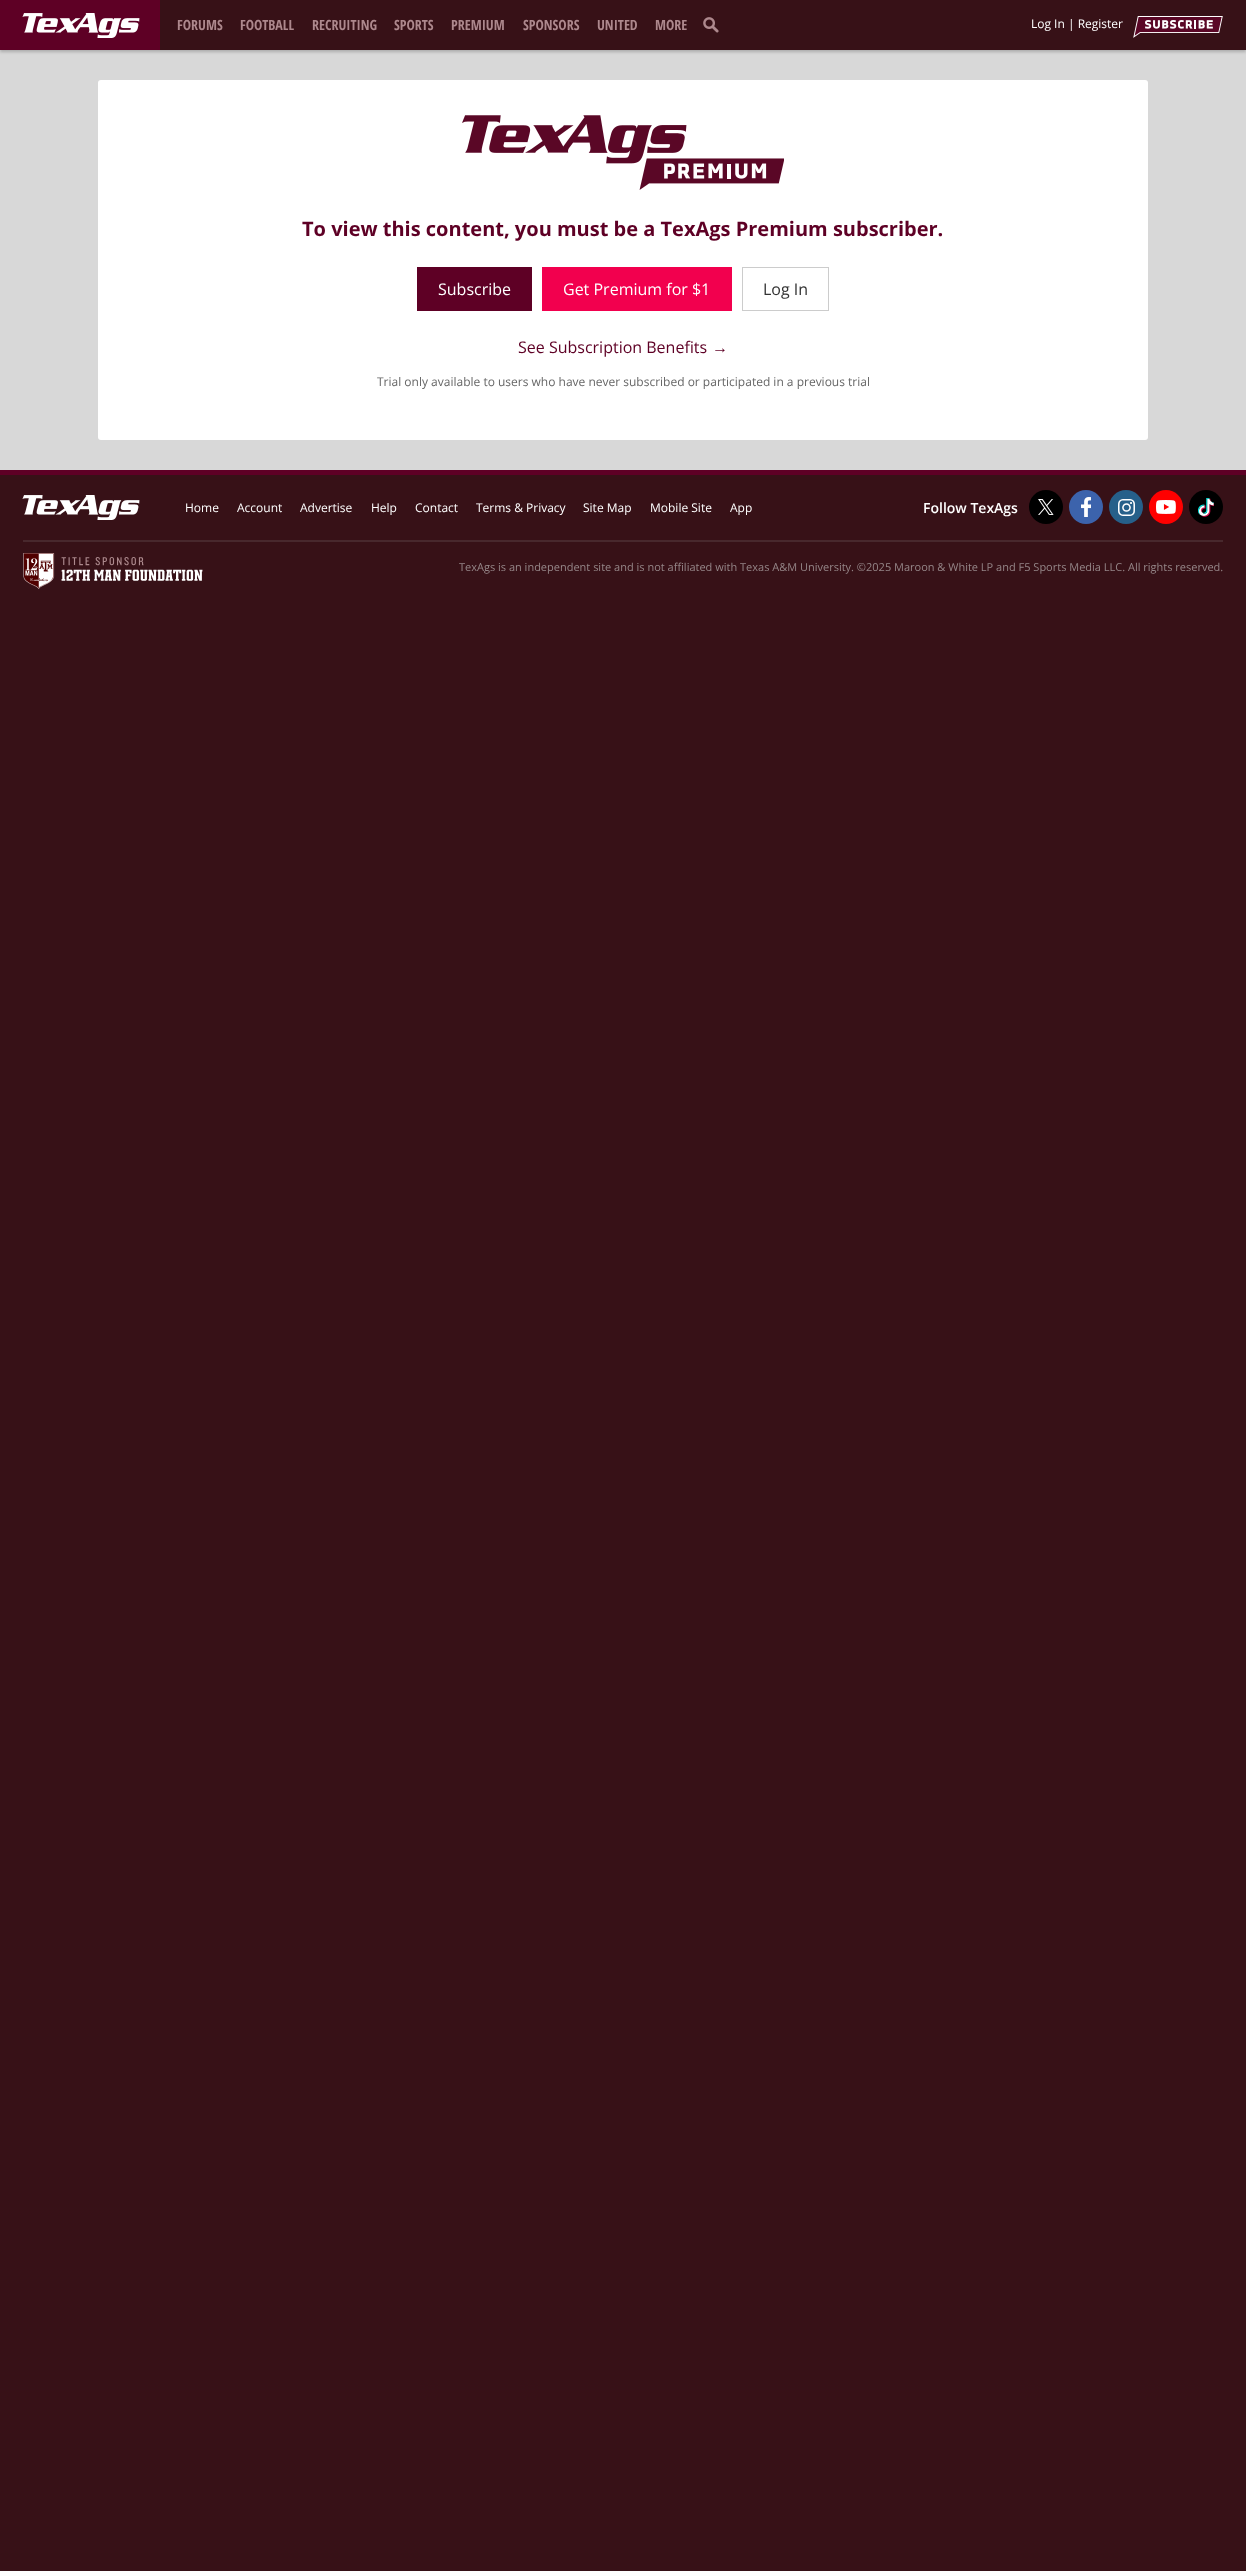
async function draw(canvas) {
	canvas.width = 1246;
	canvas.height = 2571;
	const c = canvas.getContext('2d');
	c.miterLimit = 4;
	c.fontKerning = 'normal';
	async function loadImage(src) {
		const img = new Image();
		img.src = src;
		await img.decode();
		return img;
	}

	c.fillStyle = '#d8d8d8';
	c.fillRect(0, 0, 1246, 2571);
	c.fillStyle = '#00000033';
	c.filter = 'blur(1.5px)';
	c.beginPath();
	c.rect(0, 2, 1246, 50);
	c.fill();
	c.filter = 'none';
	c.fillStyle = '#371117';
	c.fillRect(160, 0, 1086, 50);
	c.fillStyle = '#5e0025';
	c.fillRect(0, 0, 160, 50);
	c.drawImage(await loadImage('img1.png'), 22, 13, 118, 25);
	c.font = 'bold 14px Open Sans Condensed';
	c.fillStyle = '#ad888d';
	for (const [text, x, y] of [
		['FORUMS', 177, 30],
		['FOOTBALL', 240, 30],
		['RECRUITING', 312, 30],
		['SPORTS', 394, 30],
		['PREMIUM', 451, 30],
		['SPONSORS', 523, 30],
		['UNITED', 597, 30],
		['MORE', 655, 30],
	]) {
		c.fillText(text, x, y);
	}
	c.drawImage(await loadImage('img2.png'), 703, 17, 16, 16);
	c.font = '12px Open Sans';
	c.fillStyle = '#fff';
	c.fillText('Log In | Register', 1031, 28);
	c.drawImage(await loadImage('img3.png'), 1133, 16, 90, 22);
	c.beginPath();
	c.roundRect(98, 80, 1050, 360, 3);
	c.fill();
	c.drawImage(await loadImage('img4.png'), 462, 115, 322, 75);
	c.font = 'bold 20px Open Sans';
	c.fillStyle = '#5e0025';
	c.fillText('To view this content, you must be a TexAgs Premium subscriber.', 302, 236);
	c.fillRect(417, 267, 115, 44);
	c.font = '16px Open Sans';
	c.fillStyle = '#fff';
	c.fillText('Subscribe', 438, 295);
	c.fillStyle = '#f2004e';
	c.fillRect(542, 267, 190, 44);
	c.fillStyle = '#fff';
	c.fillText('Get Premium for $1', 563, 295);
	c.strokeStyle = '#ccc';
	c.strokeRect(742.5, 267.5, 86, 43);
	c.fillStyle = '#333';
	c.fillText('Log In', 763, 295);
	c.fillStyle = '#5e0025';
	c.fillText('See Subscription Benefits', 518, 353);
	c.font = '16px Liberation Sans';
	c.fillText('→', 712, 353);
	c.font = '12px Open Sans';
	c.fillStyle = '#666';
	c.fillText('Trial only available to users who have never subscribed or participated in a previous trial', 377, 386);
	c.fillStyle = '#371117';
	c.beginPath();
	c.moveTo(-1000, 470);
	c.lineTo(-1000, 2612);
	c.lineTo(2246, 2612);
	c.lineTo(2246, 470);
	c.lineTo(1246, 470);
	c.lineTo(1246, 612);
	c.lineTo(0, 612);
	c.lineTo(0, 470);
	c.closePath();
	c.fill();
	c.fillRect(0, 475, 1246, 137);
	c.fillStyle = '#5e0025';
	c.fillRect(0, 470, 1246, 5);
	c.drawImage(await loadImage('img5.png'), 22, 495, 118, 25);
	c.fillStyle = '#fff';
	for (const [text, x, y] of [
		['Home', 185, 512],
		['Account', 237, 512],
		['Advertise', 300, 512],
		['Help', 371, 512],
		['Contact', 415, 512],
		['Terms & Privacy', 476, 512],
		['Site Map', 583, 512],
		['Mobile Site', 650, 512],
		['App', 730, 512],
	]) {
		c.fillText(text, x, y);
	}
	c.font = '600 14px Open Sans';
	c.fillText('Follow TexAgs', 923, 513);
	c.fillStyle = '#000';
	c.beginPath();
	c.arc(1046, 507, 17, 0, 2 * Math.PI);
	c.fill();
	c.drawImage(await loadImage('img6.png'), 1038, 499, 16, 16);
	c.fillStyle = '#3c63ac';
	c.beginPath();
	c.arc(1086, 507, 17, 0, 2 * Math.PI);
	c.fill();
	c.drawImage(await loadImage('img7.png'), 1081, 497, 10, 20);
	c.fillStyle = '#26608a';
	c.beginPath();
	c.arc(1126, 507, 17, 0, 2 * Math.PI);
	c.fill();
	c.drawImage(await loadImage('img8.png'), 1118, 499, 17, 17);
	c.fillStyle = '#f00';
	c.beginPath();
	c.arc(1166, 507, 17, 0, 2 * Math.PI);
	c.fill();
	c.drawImage(await loadImage('img9.png'), 1156, 500, 20, 14);
	c.fillStyle = '#000';
	c.beginPath();
	c.arc(1206, 507, 17, 0, 2 * Math.PI);
	c.fill();
	c.drawImage(await loadImage('img10.png'), 1198, 498, 16, 19);
	c.fillStyle = '#48282d';
	c.fillRect(23, 540, 1200, 2);
	c.drawImage(await loadImage('img11.png'), 23, 553, 180, 36);
	c.font = '11px Open Sans';
	c.fillStyle = '#958688';
	c.fillText('TexAgs is an independent site and is not affiliated with Texas A&M University. ©2025 Maroon & White LP and F5 Sports Media LLC. All rights reserved.', 459, 571);
}

draw(document.querySelector('canvas'));
